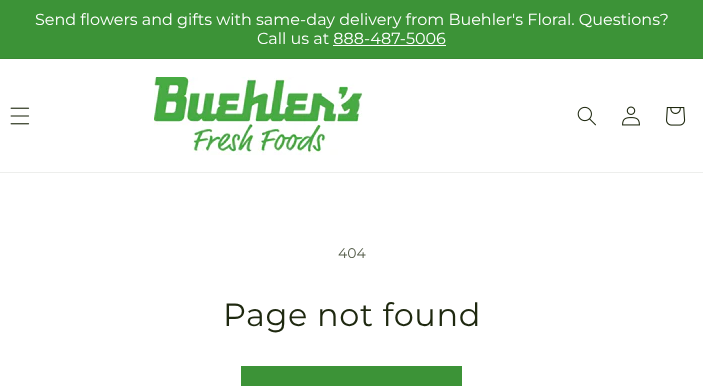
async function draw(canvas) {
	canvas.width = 703;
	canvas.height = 386;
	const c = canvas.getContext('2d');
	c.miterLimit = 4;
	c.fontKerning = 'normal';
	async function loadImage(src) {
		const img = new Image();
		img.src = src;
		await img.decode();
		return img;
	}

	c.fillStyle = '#fff';
	c.fillRect(0, 0, 703, 386);
	c.fillStyle = '#3c9337';
	c.fillRect(0, 0, 703, 58);
	c.fillStyle = '#3a8a34';
	c.fillRect(0, 58, 703, 1);
	c.font = '16px Montserrat';
	c.fillStyle = '#fff';
	c.fillText('Send flowers and gifts with same-day delivery from Buehler\'s Floral. Questions?', 35, 25);
	c.fillText('Call us at 888-487-5006', 257, 44);
	c.fillRect(333, 45, 113, 1);
	c.fillStyle = '#edeeec';
	c.fillRect(0, 172, 703, 1);
	c.drawImage(await loadImage('img1.png'), 10, 107, 20, 18);
	c.drawImage(await loadImage('img2.png'), 154, 77, 209, 78);
	c.drawImage(await loadImage('img3.png'), 577, 106, 19, 20);
	c.drawImage(await loadImage('img4.png'), 622, 106, 18, 20);
	c.drawImage(await loadImage('img5.png'), 666, 107, 20, 19);
	c.font = '14px Montserrat';
	c.fillStyle = '#565e4b';
	c.fillText('404', 338, 258);
	c.letterSpacing = '0.6px';
	c.font = '32px Montserrat';
	c.fillStyle = '#1e280f';
	c.fillText('Page not found', 223, 326);
	c.fillStyle = '#3c9337';
	c.fillRect(241, 366, 221, 20);
}

draw(document.querySelector('canvas'));
